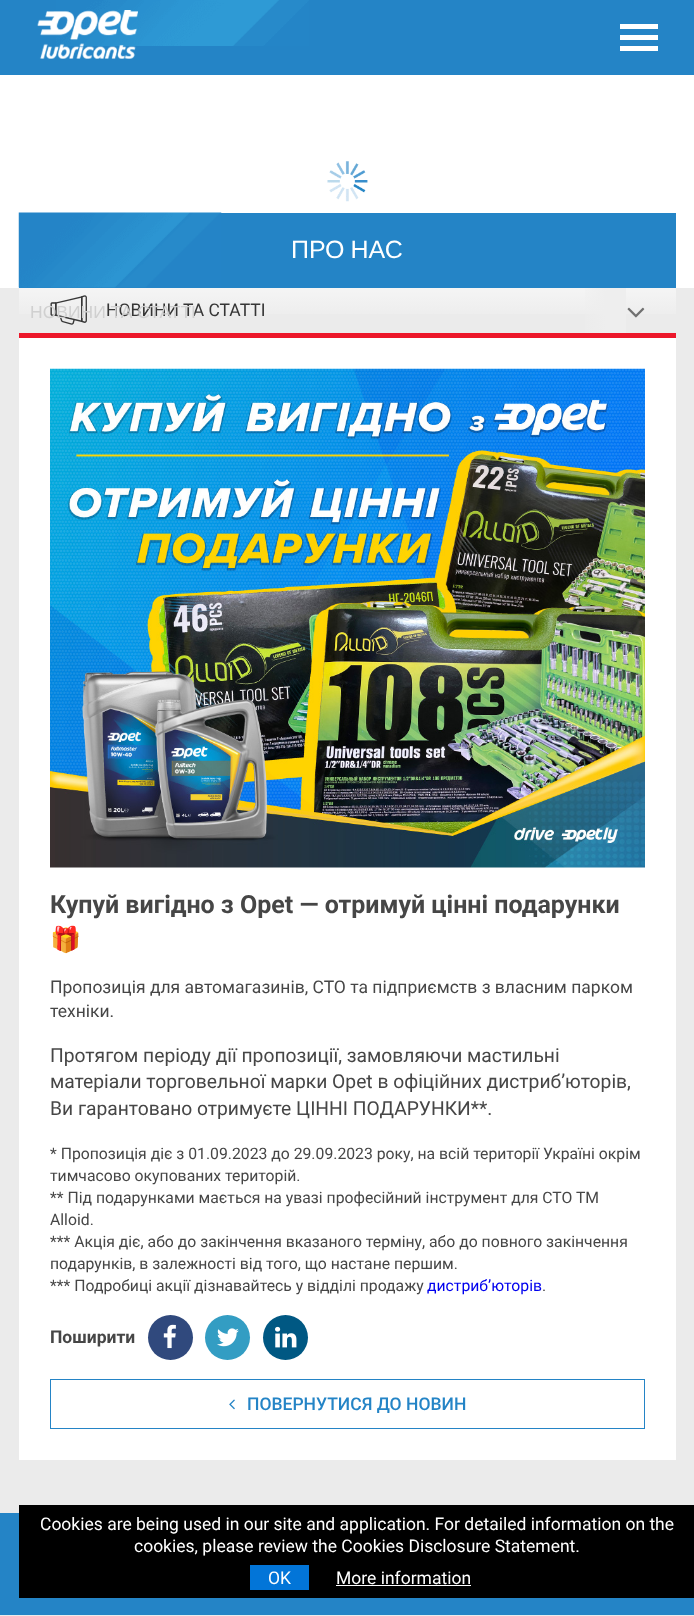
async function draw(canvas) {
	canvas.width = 694;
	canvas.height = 1616;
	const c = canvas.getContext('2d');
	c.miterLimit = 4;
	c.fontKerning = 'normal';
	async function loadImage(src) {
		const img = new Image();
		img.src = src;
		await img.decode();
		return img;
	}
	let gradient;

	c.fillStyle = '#ebebeb';
	c.fillRect(0, 0, 694, 1616);
	c.fillStyle = '#2484c6';
	c.fillRect(0, 0, 694, 75);
	c.drawImage(await loadImage('img1.png'), 56, 0, 253, 46);
	c.drawImage(await loadImage('img2.png'), 37, 10, 101, 49);
	for (const [x, y, w, h, color] of [
		[620, 24, 38, 5, '#fff'],
		[620, 35, 38, 5, '#fff'],
		[620, 46, 38, 5, '#fff'],
		[0, 75, 694, 213, '#fff'],
	]) {
		c.fillStyle = color;
		c.fillRect(x, y, w, h);
	}
	c.drawImage(await loadImage('img3.png'), 327, 161, 41, 41);
	c.fillStyle = '#2484c6';
	c.fillRect(19, 213, 657, 75);
	c.drawImage(await loadImage('img4.png'), 18, 212, 204, 76);
	c.wordSpacing = '-1px';
	c.font = '25px Liberation Sans';
	c.fillStyle = '#fff';
	c.fillText('ПРО НАС', 291, 258);
	gradient = c.createLinearGradient(348, 287, 348, 338);
	gradient.addColorStop(0, '#f5f5f5');
	gradient.addColorStop(1, '#e7e7e7');
	c.fillStyle = gradient;
	c.fillRect(19, 288, 657, 26);
	c.fillStyle = '#ec172a';
	c.fillRect(19, 333, 657, 5);
	c.drawImage(await loadImage('img5.png'), 50, 295, 37, 30);
	c.wordSpacing = '0px';
	c.font = '17.5px Roboto';
	c.fillStyle = '#363636';
	c.fillText('НОВИНИ ТА СТАТТІ', 106, 316);
	gradient = c.createLinearGradient(576, 310, 676, 310);
	gradient.addColorStop(0, '#eeeeee00');
	gradient.addColorStop(0.3, '#eee');
	gradient.addColorStop(1, '#eee');
	c.fillStyle = gradient;
	c.fillRect(585, 288, 41, 45);
	c.font = '17.5px Liberation Sans';
	c.fillStyle = '#d0d0d0';
	c.fillText('НОВИНИ ТА СТАТТІ', 30, 318);
	c.drawImage(await loadImage('img6.png'), 627, 307, 18, 11);
	c.fillStyle = '#fff';
	c.fillRect(19, 338, 657, 1122);
	c.drawImage(await loadImage('img7.png'), 50, 368, 595, 500);
	c.font = 'bold 25px Roboto';
	c.fillStyle = '#464646';
	c.fillText('Купуй вигідно з Opet — отримуй цінні подарунки', 50, 913);
	c.font = 'bold 25px Noto Color Emoji';
	c.fillText('🎁', 50, 948);
	c.font = '17.5px Roboto';
	c.fillText('Пропозиція для автомагазинів, СТО та підприємств з власним парком', 50, 993);
	c.fillText('техніки.', 50, 1017);
	c.font = '19.25px Roboto';
	for (const [text, x, y] of [
		['Протягом періоду дії пропозиції, замовляючи мастильні', 50, 1062],
		['матеріали торговельної марки Opet в офіційних дистриб’юторів,', 50, 1088],
		['Ви гарантовано отримуєте ЦІННІ ПОДАРУНКИ**.', 50, 1115],
	]) {
		c.fillText(text, x, y);
	}
	c.font = '15.75px Roboto';
	for (const [text, x, y] of [
		['* Пропозиція діє з 01.09.2023 до 29.09.2023 року, на всій території Україні окрім', 50, 1159],
		['тимчасово окупованих територій.', 50, 1181],
		['** Під подарунками мається на увазі професійний інструмент для СТО ТМ', 50, 1203],
		['Alloid.', 50, 1225],
		['*** Акція діє, або до закінчення вказаного терміну, або до повного закінчення', 50, 1247],
		['подарунків, в залежності від того, що настане першим.', 50, 1269],
		['*** Подробиці акції дізнавайтесь у відділі продажу', 50, 1291],
	]) {
		c.fillText(text, x, y);
	}
	c.fillStyle = '#00e';
	c.fillText('дистриб’юторів', 427, 1291);
	c.fillStyle = '#464646';
	c.fillText('.', 542, 1291);
	c.font = 'bold 17.5px Roboto';
	c.fillText('Поширити', 50, 1343);
	c.fillStyle = '#30497d';
	c.beginPath();
	c.arc(170.5, 1337.5, 22.5, 0, 2 * Math.PI);
	c.fill();
	c.drawImage(await loadImage('img8.png'), 163, 1324, 13, 25);
	c.fillStyle = '#339dc3';
	c.beginPath();
	c.arc(227.5, 1337.5, 22.5, 0, 2 * Math.PI);
	c.fill();
	c.drawImage(await loadImage('img9.png'), 217, 1328, 22, 19);
	c.fillStyle = '#005883';
	c.beginPath();
	c.arc(285.5, 1337.5, 22.5, 0, 2 * Math.PI);
	c.fill();
	c.drawImage(await loadImage('img10.png'), 275, 1326, 22, 22);
	c.strokeStyle = '#2484c6';
	c.strokeRect(50.5, 1379.5, 594, 49);
	c.drawImage(await loadImage('img11.png'), 229, 1399, 6, 11);
	c.font = '500 17.5px Roboto';
	c.fillStyle = '#2484c6';
	c.fillText('ПОВЕРНУТИСЯ ДО НОВИН', 247, 1410);
	c.fillRect(0, 1513, 694, 102);
	c.fillStyle = '#000';
	c.fillRect(19, 1505, 675, 93);
	c.font = '17.5px Roboto';
	c.fillStyle = '#fff';
	c.fillText('Cookies are being used in our site and application. For detailed information on the', 40, 1530);
	c.fillText('cookies, please review the Cookies Disclosure Statement.', 134, 1552);
	c.fillStyle = '#0275d8';
	c.fillRect(250, 1565, 59, 25);
	c.fillStyle = '#fff';
	c.fillText('OK', 268, 1584);
	c.fillText('More information', 336, 1584);
	c.fillRect(336, 1585, 135, 1);
}

draw(document.querySelector('canvas'));
